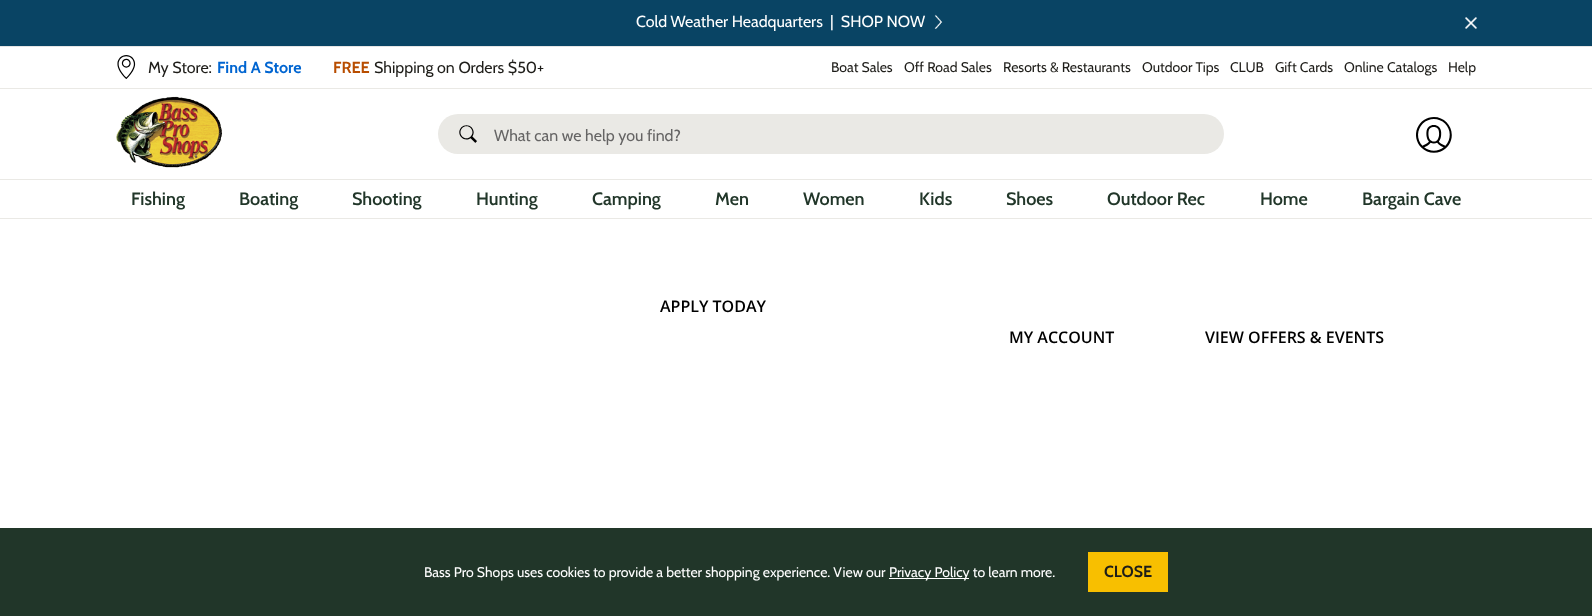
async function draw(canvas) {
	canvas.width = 1592;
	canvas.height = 616;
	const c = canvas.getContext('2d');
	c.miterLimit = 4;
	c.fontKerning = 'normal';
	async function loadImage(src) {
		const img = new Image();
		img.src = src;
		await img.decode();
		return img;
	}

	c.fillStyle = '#fff';
	c.fillRect(0, 0, 1592, 616);
	c.fillStyle = '#094464';
	c.fillRect(0, 0, 1592, 46);
	c.fillStyle = '#e5e5e5';
	c.fillRect(0, 46, 1592, 1);
	c.font = '16px Cabin';
	c.fillStyle = '#fff';
	c.fillText('Cold Weather Headquarters', 636, 27);
	c.fillText('|  SHOP NOW', 830, 27);
	c.drawImage(await loadImage('img1.png'), 934, 14, 9, 15);
	c.drawImage(await loadImage('img2.png'), 1465, 17, 12, 12);
	c.drawImage(await loadImage('img3.png'), 117, 55, 19, 24);
	c.fillStyle = '#1e1d19';
	c.fillText('My Store:', 148, 73);
	c.font = 'bold 16px Cabin';
	c.fillStyle = '#0065d1';
	c.fillText('Find A Store', 217, 73);
	c.fillStyle = '#b84d00';
	c.fillText('FREE', 333, 73);
	c.font = '16px Cabin';
	c.fillStyle = '#1e1d19';
	c.fillText('Shipping on Orders $50+', 374, 73);
	c.font = '14px Cabin';
	for (const [text, x, y] of [
		['Boat Sales', 831, 72],
		['Off Road Sales', 904, 72],
		['Resorts & Restaurants', 1003, 72],
		['Outdoor Tips', 1142, 72],
		['CLUB', 1230, 72],
		['Gift Cards', 1275, 72],
		['Online Catalogs', 1344, 72],
		['Help', 1448, 72],
	]) {
		c.fillText(text, x, y);
	}
	c.fillStyle = '#eae9e5';
	c.fillRect(0, 88, 1592, 1);
	c.fillRect(0, 218, 1592, 1);
	c.drawImage(await loadImage('img4.png'), 116, 96, 107, 72);
	c.beginPath();
	c.roundRect(438, 114, 786, 40, 20);
	c.fill();
	c.drawImage(await loadImage('img5.png'), 459, 125, 18, 18);
	c.font = '16px Cabin';
	c.fillStyle = '#656464';
	c.fillText('What can we help you find?', 494, 141);
	c.drawImage(await loadImage('img6.png'), 1416, 117, 36, 36);
	c.fillStyle = '#eae9e5';
	c.fillRect(0, 179, 1592, 1);
	c.font = '600 18px Cabin';
	c.fillStyle = '#213629';
	for (const [text, x, y] of [
		['Fishing', 131, 205],
		['Boating', 239, 205],
		['Shooting', 352, 205],
		['Hunting', 476, 205],
		['Camping', 592, 205],
		['Men', 715, 205],
		['Women', 803, 205],
		['Kids', 919, 205],
		['Shoes', 1006, 205],
		['Outdoor Rec', 1107, 205],
		['Home', 1260, 205],
		['Bargain Cave', 1362, 205],
	]) {
		c.fillText(text, x, y);
	}
	c.fillRect(0, 528, 1592, 88);
	c.font = '14px Cabin';
	c.fillStyle = '#fff';
	c.fillText('Bass Pro Shops uses cookies to provide a better shopping experience. View our', 424, 577);
	c.fillRect(889, 578, 80, 1);
	c.fillText('Privacy Policy to learn more.', 889, 577);
	c.fillStyle = '#f8bf00';
	c.fillRect(1088, 552, 80, 40);
	c.font = 'bold 16px Cabin';
	c.fillStyle = '#1e1d19';
	c.fillText('CLOSE', 1104, 577);
	c.font = '600 16px Open Sans';
	c.fillStyle = '#000';
	for (const [text, x, y] of [
		['APPLY TODAY', 660, 312],
		['MY ACCOUNT', 1009, 343],
		['VIEW OFFERS & EVENTS', 1205, 343],
	]) {
		c.fillText(text, x, y);
	}
}

draw(document.querySelector('canvas'));
